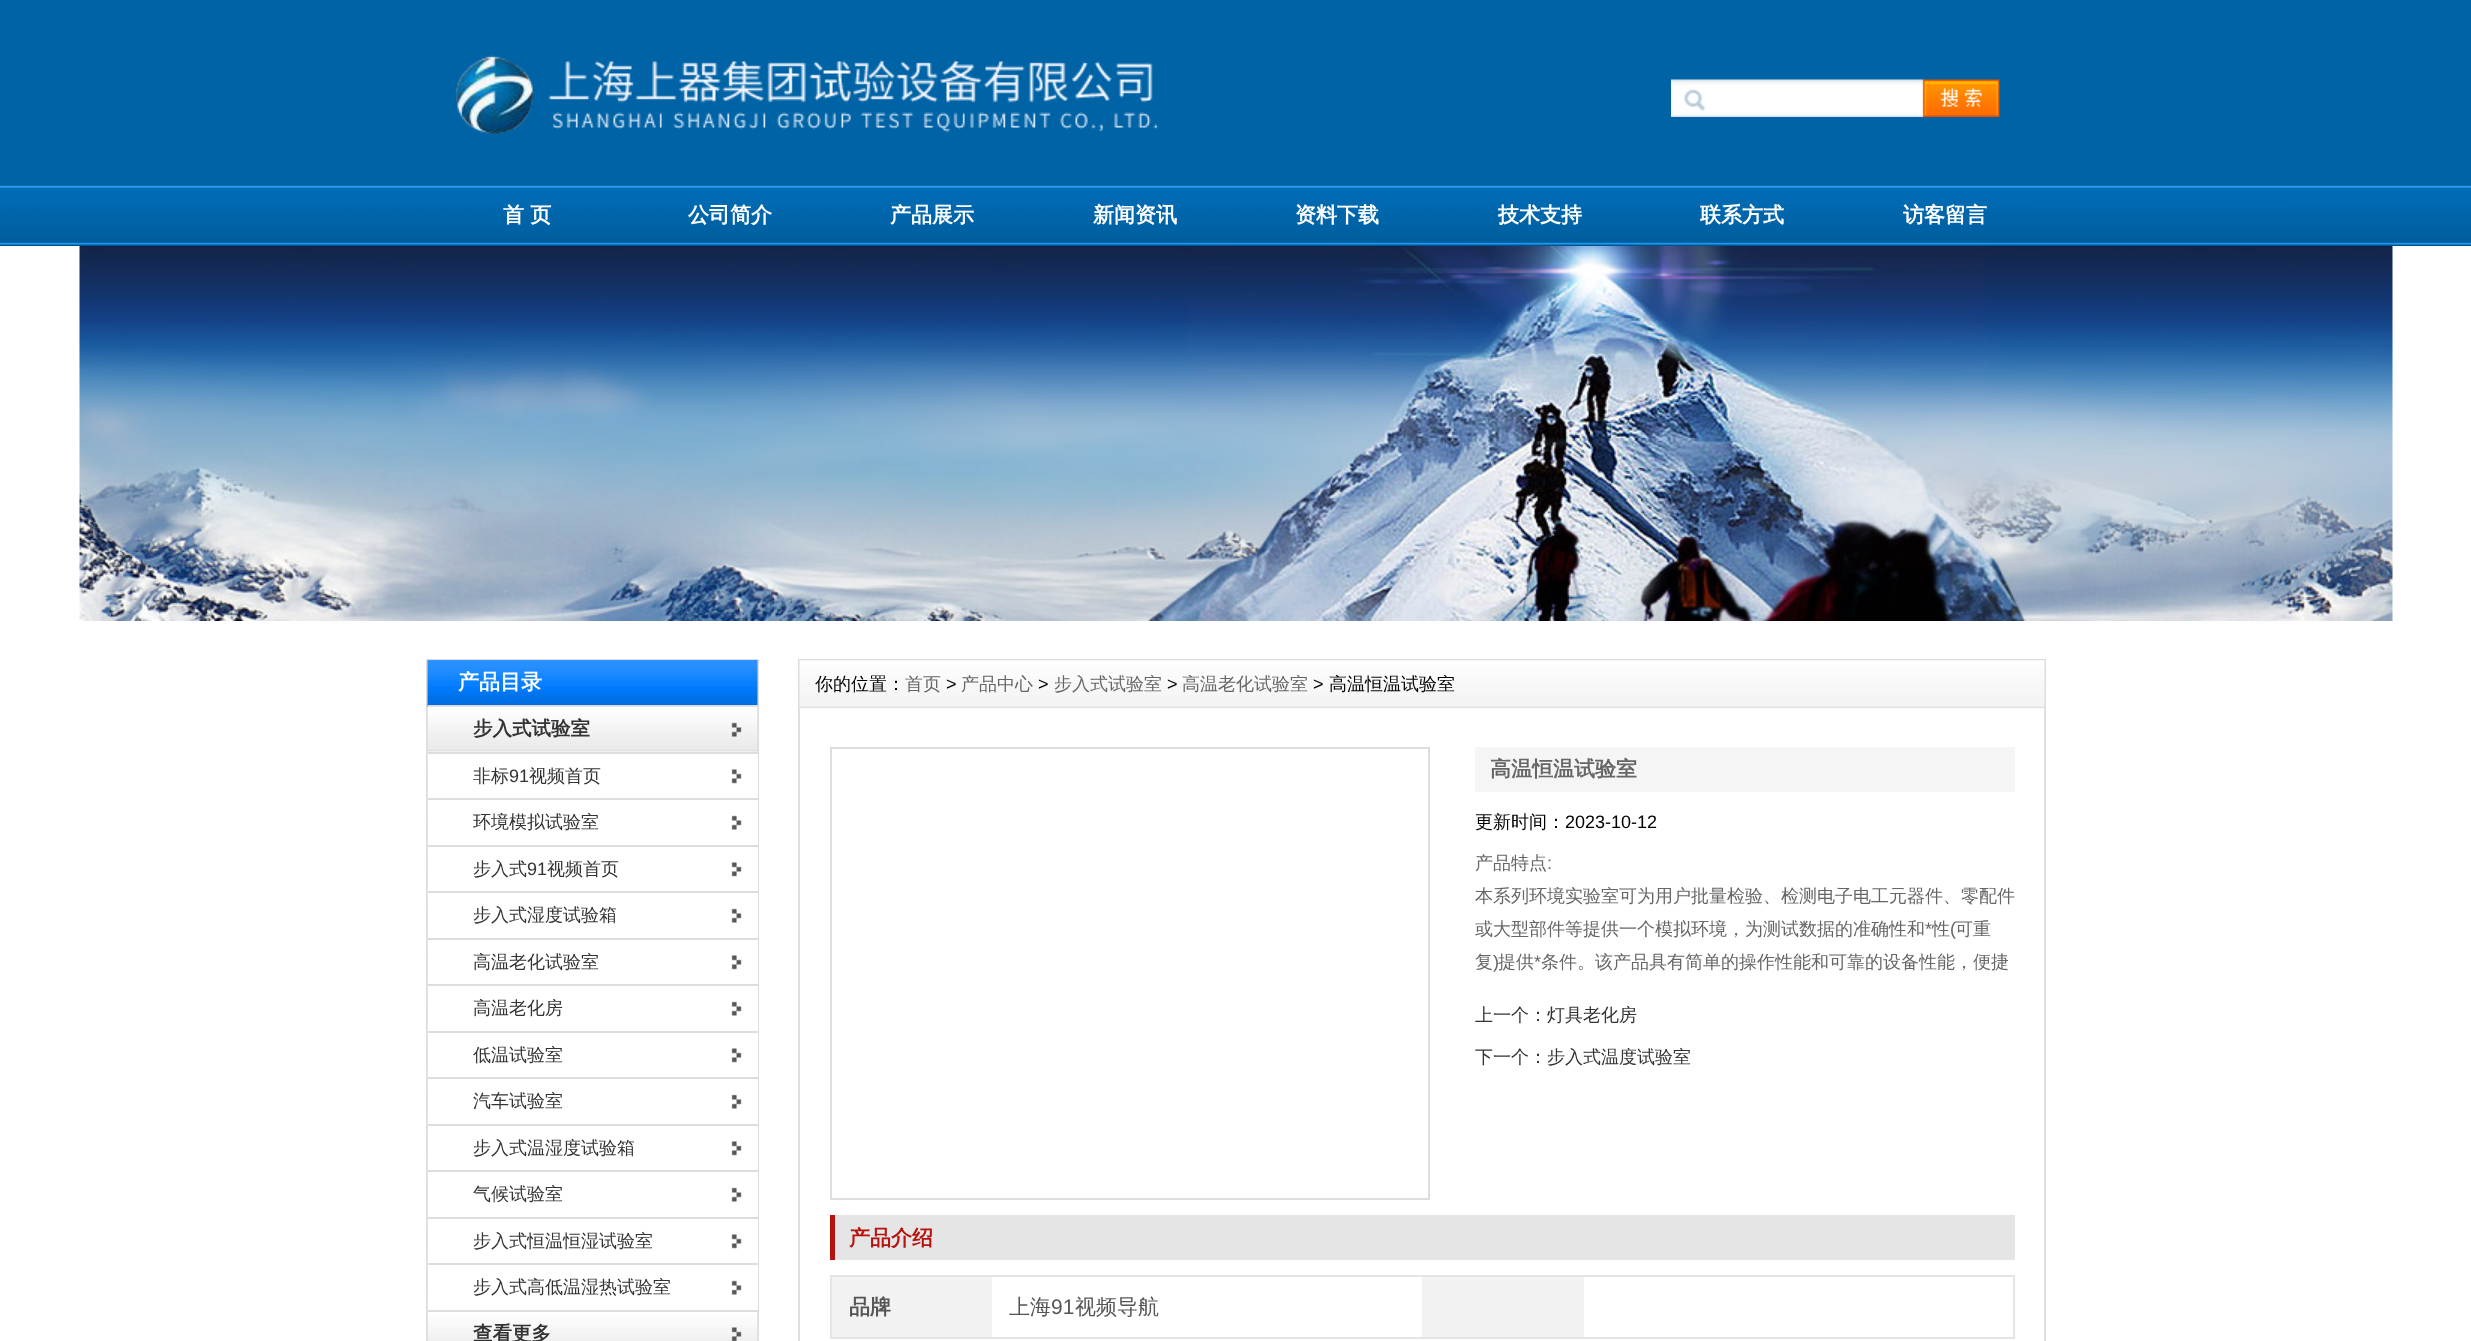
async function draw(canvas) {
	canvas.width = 2471;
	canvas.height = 1341;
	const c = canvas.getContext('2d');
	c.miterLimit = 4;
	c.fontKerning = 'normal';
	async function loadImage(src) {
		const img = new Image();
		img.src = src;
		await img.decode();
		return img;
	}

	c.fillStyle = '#fff';
	c.fillRect(0, 0, 2471, 1341);
	c.fillStyle = '#0063a5';
	c.fillRect(0, 0, 2471, 185);
	c.drawImage(await loadImage('img1.png'), 455, 55, 704, 79);
	c.drawImage(await loadImage('img2.png'), 1671, 79, 329, 38);
	c.drawImage(await loadImage('img3.png'), 0, 184, 2471, 62);
	c.font = 'bold 21px WenQuanYi Zen Hei';
	c.fillStyle = '#fff';
	for (const [text, x, y] of [
		['首 页', 503, 222],
		['公司简介', 688, 222],
		['产品展示', 890, 222],
		['新闻资讯', 1093, 222],
		['资料下载', 1295, 222],
		['技术支持', 1498, 222],
		['联系方式', 1700, 222],
		['访客留言', 1903, 222],
	]) {
		c.fillText(text, x, y);
	}
	c.drawImage(await loadImage('img4.png'), 79, 246, 2314, 375);
	c.strokeStyle = '#ddd';
	c.lineWidth = 2;
	c.strokeRect(427, 660, 331, 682);
	c.drawImage(await loadImage('img5.png'), 427, 660, 331, 47);
	c.fillStyle = '#ddd';
	c.fillRect(428, 705, 330, 2);
	c.fillStyle = '#fff';
	c.fillText('产品目录', 458, 689);
	c.drawImage(await loadImage('img6.png'), 427, 706, 331, 605);
	c.drawImage(await loadImage('img7.png'), 731, 722, 11, 15);
	c.fillStyle = '#ddd';
	c.fillRect(428, 752, 330, 2);
	c.font = 'bold 19.5px WenQuanYi Zen Hei';
	c.fillStyle = '#333';
	c.fillText('步入式试验室', 473, 735);
	c.fillStyle = '#fff';
	c.fillRect(428, 754, 330, 556);
	c.drawImage(await loadImage('img8.png'), 731, 769, 11, 15);
	c.fillStyle = '#ddd';
	c.fillRect(428, 798, 330, 2);
	c.font = '500 18px WenQuanYi Zen Hei';
	c.fillStyle = '#333';
	c.fillText('非标', 473, 782);
	c.font = '18px Liberation Sans';
	c.fillText('91', 509, 782);
	c.font = '500 18px WenQuanYi Zen Hei';
	c.fillText('视频首页', 529, 782);
	c.drawImage(await loadImage('img9.png'), 731, 815, 11, 15);
	c.fillStyle = '#ddd';
	c.fillRect(428, 845, 330, 2);
	c.fillStyle = '#333';
	c.fillText('环境模拟试验室', 473, 828);
	c.drawImage(await loadImage('img8.png'), 731, 862, 11, 15);
	c.fillStyle = '#ddd';
	c.fillRect(428, 891, 330, 2);
	c.fillStyle = '#333';
	c.fillText('步入式', 473, 875);
	c.font = '18px Liberation Sans';
	c.fillText('91', 527, 875);
	c.font = '500 18px WenQuanYi Zen Hei';
	c.fillText('视频首页', 547, 875);
	c.drawImage(await loadImage('img9.png'), 731, 908, 11, 15);
	c.fillStyle = '#ddd';
	c.fillRect(428, 938, 330, 2);
	c.fillStyle = '#333';
	c.fillText('步入式湿度试验箱', 473, 921);
	c.drawImage(await loadImage('img8.png'), 731, 955, 11, 15);
	c.fillStyle = '#ddd';
	c.fillRect(428, 984, 330, 2);
	c.fillStyle = '#333';
	c.fillText('高温老化试验室', 473, 968);
	c.drawImage(await loadImage('img9.png'), 731, 1001, 11, 15);
	c.fillStyle = '#ddd';
	c.fillRect(428, 1031, 330, 2);
	c.fillStyle = '#333';
	c.fillText('高温老化房', 473, 1014);
	c.drawImage(await loadImage('img8.png'), 731, 1048, 11, 15);
	c.fillStyle = '#ddd';
	c.fillRect(428, 1077, 330, 2);
	c.fillStyle = '#333';
	c.fillText('低温试验室', 473, 1061);
	c.drawImage(await loadImage('img9.png'), 731, 1094, 11, 15);
	c.fillStyle = '#ddd';
	c.fillRect(428, 1124, 330, 2);
	c.fillStyle = '#333';
	c.fillText('汽车试验室', 473, 1107);
	c.drawImage(await loadImage('img8.png'), 731, 1141, 11, 15);
	c.fillStyle = '#ddd';
	c.fillRect(428, 1170, 330, 2);
	c.fillStyle = '#333';
	c.fillText('步入式温湿度试验箱', 473, 1154);
	c.drawImage(await loadImage('img9.png'), 731, 1187, 11, 15);
	c.fillStyle = '#ddd';
	c.fillRect(428, 1217, 330, 2);
	c.fillStyle = '#333';
	c.fillText('气候试验室', 473, 1200);
	c.drawImage(await loadImage('img8.png'), 731, 1234, 11, 15);
	c.fillStyle = '#ddd';
	c.fillRect(428, 1263, 330, 2);
	c.fillStyle = '#333';
	c.fillText('步入式恒温恒湿试验室', 473, 1247);
	c.drawImage(await loadImage('img9.png'), 731, 1280, 11, 15);
	c.drawImage(await loadImage('img10.png'), 427, 1311, 331, 30);
	c.fillStyle = '#ddd';
	c.fillRect(428, 1310, 330, 2);
	c.fillStyle = '#333';
	c.fillText('步入式高低温湿热试验室', 473, 1293);
	c.drawImage(await loadImage('img11.png'), 731, 1327, 11, 14);
	c.font = 'bold 19.5px WenQuanYi Zen Hei';
	c.fillText('查看更多', 473, 1340);
	c.strokeRect(799, 660, 1246, 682);
	c.drawImage(await loadImage('img12.png'), 799, 660, 1246, 50);
	c.font = '500 18px WenQuanYi Zen Hei';
	c.fillStyle = '#000';
	c.fillText('你的位置：', 815, 690);
	c.fillStyle = '#666';
	c.fillText('首页', 905, 690);
	c.font = '18px Liberation Sans';
	c.fillStyle = '#000';
	c.fillText('>', 946, 690);
	c.font = '500 18px WenQuanYi Zen Hei';
	c.fillStyle = '#666';
	c.fillText('产品中心', 961, 690);
	c.font = '18px Liberation Sans';
	c.fillStyle = '#000';
	c.fillText('>', 1038, 690);
	c.font = '500 18px WenQuanYi Zen Hei';
	c.fillStyle = '#666';
	c.fillText('步入式试验室', 1054, 690);
	c.font = '18px Liberation Sans';
	c.fillStyle = '#000';
	c.fillText('>', 1167, 690);
	c.font = '500 18px WenQuanYi Zen Hei';
	c.fillStyle = '#666';
	c.fillText('高温老化试验室', 1182, 690);
	c.font = '18px Liberation Sans';
	c.fillStyle = '#000';
	c.fillText('>', 1313, 690);
	c.font = '500 18px WenQuanYi Zen Hei';
	c.fillText('高温恒温试验室', 1329, 690);
	c.strokeRect(831, 748, 598, 451);
	c.fillStyle = '#f5f5f5';
	c.fillRect(1475, 747, 540, 45);
	c.font = 'bold 21px WenQuanYi Zen Hei';
	c.fillStyle = '#666';
	c.fillText('高温恒温试验室', 1490, 776);
	c.font = '500 18px WenQuanYi Zen Hei';
	c.fillStyle = '#000';
	c.fillText('更新时间：', 1475, 828);
	c.font = '18px Liberation Sans';
	c.fillText('2023-10-12', 1565, 828);
	c.font = '500 18px WenQuanYi Zen Hei';
	c.fillStyle = '#666';
	c.fillText('产品特点', 1475, 869);
	c.font = '18px Liberation Sans';
	c.fillText(':', 1547, 869);
	c.font = '500 18px WenQuanYi Zen Hei';
	c.fillText('本系列环境实验室可为用户批量检验、检测电子电工元器件、零配件', 1475, 902);
	c.fillText('或大型部件等提供一个模拟环境，为测试数据的准确性和', 1475, 935);
	c.font = '18px Liberation Sans';
	c.fillText('*', 1925, 935);
	c.font = '500 18px WenQuanYi Zen Hei';
	c.fillText('性', 1932, 935);
	c.font = '18px Liberation Sans';
	c.fillText('(', 1950, 935);
	c.font = '500 18px WenQuanYi Zen Hei';
	c.fillText('可重', 1955, 935);
	c.fillText('复', 1475, 968);
	c.font = '18px Liberation Sans';
	c.fillText(')', 1493, 968);
	c.font = '500 18px WenQuanYi Zen Hei';
	c.fillText('提供', 1498, 968);
	c.font = '18px Liberation Sans';
	c.fillText('*', 1534, 968);
	c.font = '500 18px WenQuanYi Zen Hei';
	c.fillText('条件。该产品具有简单的操作性能和可靠的设备性能，便捷', 1541, 968);
	c.fillStyle = '#333';
	c.fillText('上一个：灯具老化房', 1475, 1021);
	c.fillText('下一个：步入式温度试验室', 1475, 1063);
	c.fillStyle = '#e5e5e5';
	c.fillRect(835, 1215, 1180, 45);
	c.fillStyle = '#b6120f';
	c.fillRect(830, 1215, 5, 45);
	c.font = 'bold 21px WenQuanYi Zen Hei';
	c.fillText('产品介绍', 849, 1245);
	for (const [x, y, w, h, color] of [
		[830, 1275, 1185, 2, '#e6e5e5'],
		[2013, 1275, 2, 63, '#e6e5e5'],
		[830, 1275, 2, 63, '#e6e5e5'],
		[832, 1277, 160, 60, '#f2f2f2'],
	]) {
		c.fillStyle = color;
		c.fillRect(x, y, w, h);
	}
	c.fillStyle = '#555';
	c.fillText('品牌', 849, 1314);
	c.font = '500 21px WenQuanYi Zen Hei';
	c.fillText('上海', 1009, 1314);
	c.font = '21px Liberation Sans';
	c.fillText('91', 1051, 1314);
	c.font = '500 21px WenQuanYi Zen Hei';
	c.fillText('视频导航', 1075, 1314);
	c.fillStyle = '#f2f2f2';
	c.fillRect(1422, 1277, 162, 60);
	c.fillStyle = '#e6e5e5';
	c.fillRect(830, 1337, 1185, 2);
}

draw(document.querySelector('canvas'));
